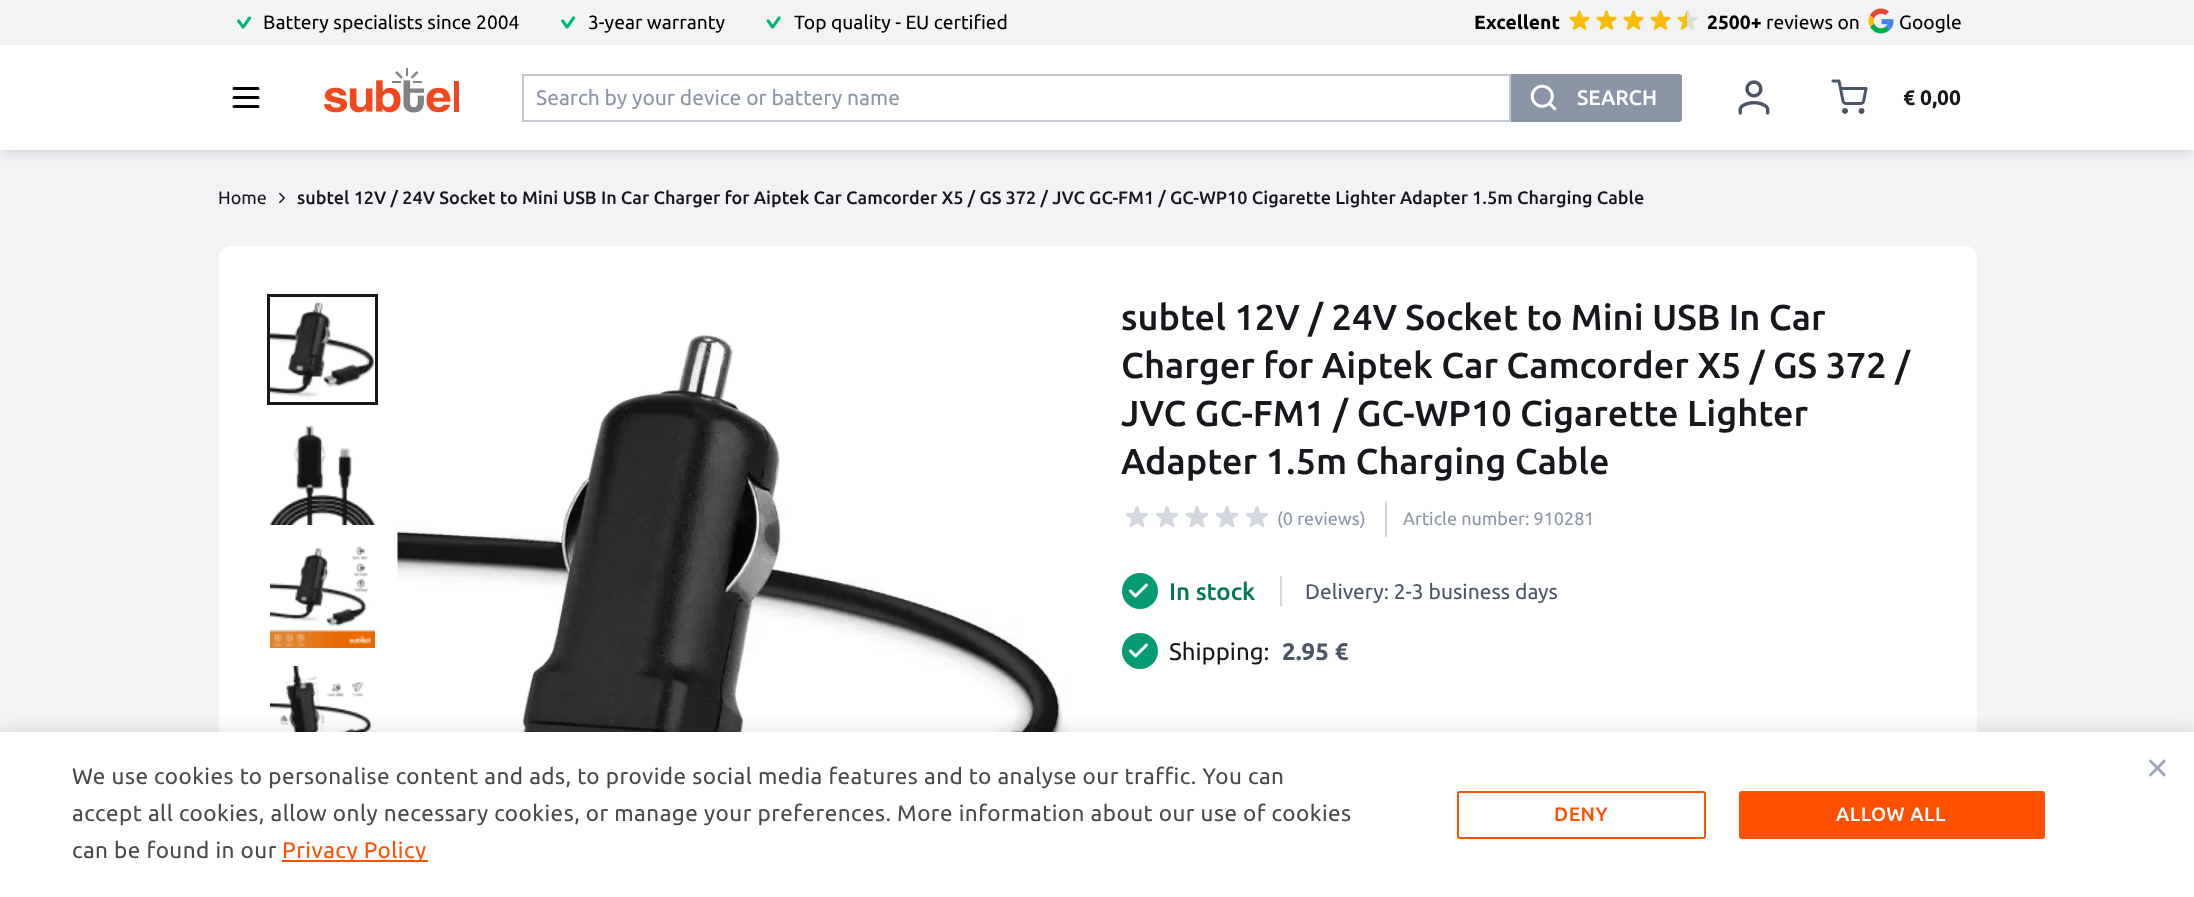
async function draw(canvas) {
	canvas.width = 2194;
	canvas.height = 897;
	const c = canvas.getContext('2d');
	c.miterLimit = 4;
	c.fontKerning = 'normal';
	async function loadImage(src) {
		const img = new Image();
		img.src = src;
		await img.decode();
		return img;
	}

	c.fillStyle = '#f1f3f5';
	c.fillRect(0, 0, 2194, 897);
	c.drawImage(await loadImage('img1.png'), 237, 16, 15, 13);
	c.font = '19.25px Ubuntu';
	c.fillStyle = '#000';
	c.fillText('Battery specialists since 2004', 263, 29);
	c.drawImage(await loadImage('img1.png'), 561, 16, 15, 13);
	c.fillText('3-year warranty', 588, 29);
	c.drawImage(await loadImage('img2.png'), 766, 16, 15, 13);
	c.fillText('Top quality - EU certified', 794, 29);
	c.font = 'bold 19.25px Ubuntu';
	c.fillText('Excellent', 1474, 29);
	c.drawImage(await loadImage('img3.png'), 1569, 10, 21, 20);
	c.drawImage(await loadImage('img3.png'), 1596, 10, 21, 20);
	c.drawImage(await loadImage('img3.png'), 1623, 10, 21, 20);
	c.drawImage(await loadImage('img3.png'), 1650, 10, 21, 20);
	c.drawImage(await loadImage('img4.png'), 1677, 10, 21, 20);
	c.fillText('2500+', 1707, 29);
	c.font = '19.25px Ubuntu';
	c.fillText('reviews on', 1766, 29);
	c.drawImage(await loadImage('img5.png'), 1868, 8, 26, 26);
	c.fillText('Google', 1899, 29);
	c.fillStyle = '#1018281a';
	c.filter = 'blur(6px)';
	c.beginPath();
	c.rect(3, 54, 2189, 99);
	c.fill();
	c.filter = 'none';
	c.fillStyle = '#1018280f';
	c.filter = 'blur(3px)';
	c.beginPath();
	c.rect(3, 51, 2189, 99);
	c.fill();
	c.filter = 'none';
	c.fillStyle = '#fff';
	c.fillRect(0, 45, 2194, 105);
	c.beginPath();
	c.moveTo(234, 88.5);
	c.lineTo(258, 88.5);
	c.moveTo(234, 97.5);
	c.lineTo(258, 97.5);
	c.moveTo(234, 106.5);
	c.lineTo(258, 106.5);
	c.strokeStyle = '#000';
	c.lineWidth = 3;
	c.lineCap = 'round';
	c.lineJoin = 'round';
	c.stroke();
	c.drawImage(await loadImage('img6.png'), 324, 68, 135, 45);
	c.strokeStyle = '#c1c8d2';
	c.lineWidth = 2;
	c.lineJoin = 'miter';
	c.strokeRect(523, 75, 987, 46);
	c.font = '21px Ubuntu';
	c.fillStyle = '#8a96a8';
	c.fillText('Search by your device or battery name', 536, 105);
	c.beginPath();
	c.roundRect(1511, 74, 171, 48, [0, 3, 3, 0]);
	c.fill();
	c.drawImage(await loadImage('img7.png'), 1530, 84, 27, 27);
	c.font = '500 21px Ubuntu';
	c.fillStyle = '#fff';
	c.fillText('SEARCH', 1577, 105);
	c.drawImage(await loadImage('img8.png'), 1738, 80, 32, 35);
	c.drawImage(await loadImage('img9.png'), 1831, 79, 37, 35);
	c.font = 'bold 21px Ubuntu';
	c.fillStyle = '#16181d';
	c.fillText('€ 0,00', 1903, 105);
	c.font = '18px Ubuntu';
	c.fillText('Home', 218, 204);
	c.drawImage(await loadImage('img10.png'), 279, 192, 6, 12);
	c.font = '500 18px Ubuntu';
	c.fillText('subtel 12V / 24V Socket to Mini USB In Car Charger for Aiptek Car Camcorder X5 / GS 372 / JVC GC-FM1 / GC-WP10 Cigarette Lighter Adapter 1.5m Charging Cable', 297, 204);
	c.fillStyle = '#fff';
	c.beginPath();
	c.roundRect(219, 246, 1758, 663, 12);
	c.fill();
	c.strokeStyle = '#16181d';
	c.lineWidth = 3;
	c.strokeRect(268.5, 295.5, 108, 108);
	c.drawImage(await loadImage('img11.png'), 270, 302, 105, 95);
	c.drawImage(await loadImage('img12.png'), 270, 425, 105, 100);
	c.drawImage(await loadImage('img13.png'), 270, 546, 105, 102);
	c.drawImage(await loadImage('img14.png'), 270, 666, 105, 66);
	c.drawImage(await loadImage('img15.png'), 397, 333, 671, 399);
	c.font = '500 36px Ubuntu';
	c.fillStyle = '#16181d';
	for (const [text, x, y] of [
		['subtel 12V / 24V Socket to Mini USB In Car', 1121, 330],
		['Charger for Aiptek Car Camcorder X5 / GS 372 /', 1121, 378],
		['JVC GC-FM1 / GC-WP10 Cigarette Lighter', 1121, 426],
		['Adapter 1.5m Charging Cable', 1121, 474],
	]) {
		c.fillText(text, x, y);
	}
	c.drawImage(await loadImage('img16.png'), 1126, 506, 22, 22);
	c.drawImage(await loadImage('img16.png'), 1156, 506, 22, 22);
	c.drawImage(await loadImage('img16.png'), 1186, 506, 22, 22);
	c.drawImage(await loadImage('img16.png'), 1216, 506, 22, 22);
	c.drawImage(await loadImage('img16.png'), 1246, 506, 22, 22);
	c.font = '18px Ubuntu';
	c.fillStyle = '#8a96a8';
	c.fillText('(0 reviews)', 1277, 525);
	c.fillStyle = '#d3d7df';
	c.fillRect(1385, 501, 2, 36);
	c.fillStyle = '#8a96a8';
	c.fillText('Article number: 910281', 1403, 525);
	c.fillStyle = '#049a72';
	c.beginPath();
	c.arc(1140, 591, 18, 0, 2 * Math.PI);
	c.fill();
	c.drawImage(await loadImage('img17.png'), 1129, 583, 19, 15);
	c.font = '500 24px Ubuntu';
	c.fillStyle = '#027859';
	c.fillText('In stock', 1169, 600);
	c.fillStyle = '#d3d7df';
	c.fillRect(1280, 576, 2, 30);
	c.font = '21px Ubuntu';
	c.fillStyle = '#4c5567';
	c.fillText('Delivery: 2-3 business days', 1305, 599);
	c.fillStyle = '#049a72';
	c.beginPath();
	c.arc(1140, 651, 18, 0, 2 * Math.PI);
	c.fill();
	c.drawImage(await loadImage('img17.png'), 1129, 643, 19, 15);
	c.font = '24px Ubuntu';
	c.fillStyle = '#16181d';
	c.fillText('Shipping:', 1169, 660);
	c.font = 'bold 24px Ubuntu';
	c.fillStyle = '#4c5567';
	c.fillText('2.95 €', 1282, 660);
	c.fillStyle = '#0000001a';
	c.filter = 'blur(7.5px)';
	c.beginPath();
	c.rect(0, 729, 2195, 165);
	c.fill();
	c.filter = 'none';
	c.fillStyle = '#fff';
	c.fillRect(0, 732, 2194, 165);
	c.letterSpacing = '0.45px';
	c.font = '22.5px Ubuntu';
	c.fillStyle = '#4a4a4a';
	for (const [text, x, y] of [
		['We use cookies to personalise content and ads, to provide social media features and to analyse our traffic. You can', 72, 784],
		['accept all cookies, allow only necessary cookies, or manage your preferences. More information about our use of cookies', 72, 821],
		['can be found in our', 72, 858],
	]) {
		c.fillText(text, x, y);
	}
	c.fillStyle = '#ff5000';
	c.fillRect(282, 860, 146, 2);
	c.fillText('Privacy Policy', 282, 858);
	c.beginPath();
	c.roundRect(1458, 792, 247, 46, 2);
	c.strokeStyle = '#ff5000';
	c.lineWidth = 2;
	c.stroke();
	c.letterSpacing = '0.5px';
	c.font = '500 19.5px Ubuntu';
	c.fillText('DENY', 1554, 821);
	c.beginPath();
	c.roundRect(1740, 792, 304, 46, 2);
	c.fill();
	c.stroke();
	c.fillStyle = '#fff';
	c.fillText('ALLOW ALL', 1836, 821);
	c.letterSpacing = '0px';
	c.font = '39px Liberation Sans';
	c.fillStyle = '#9ca6b5';
	c.fillText('×', 2146, 781);
}

draw(document.querySelector('canvas'));
